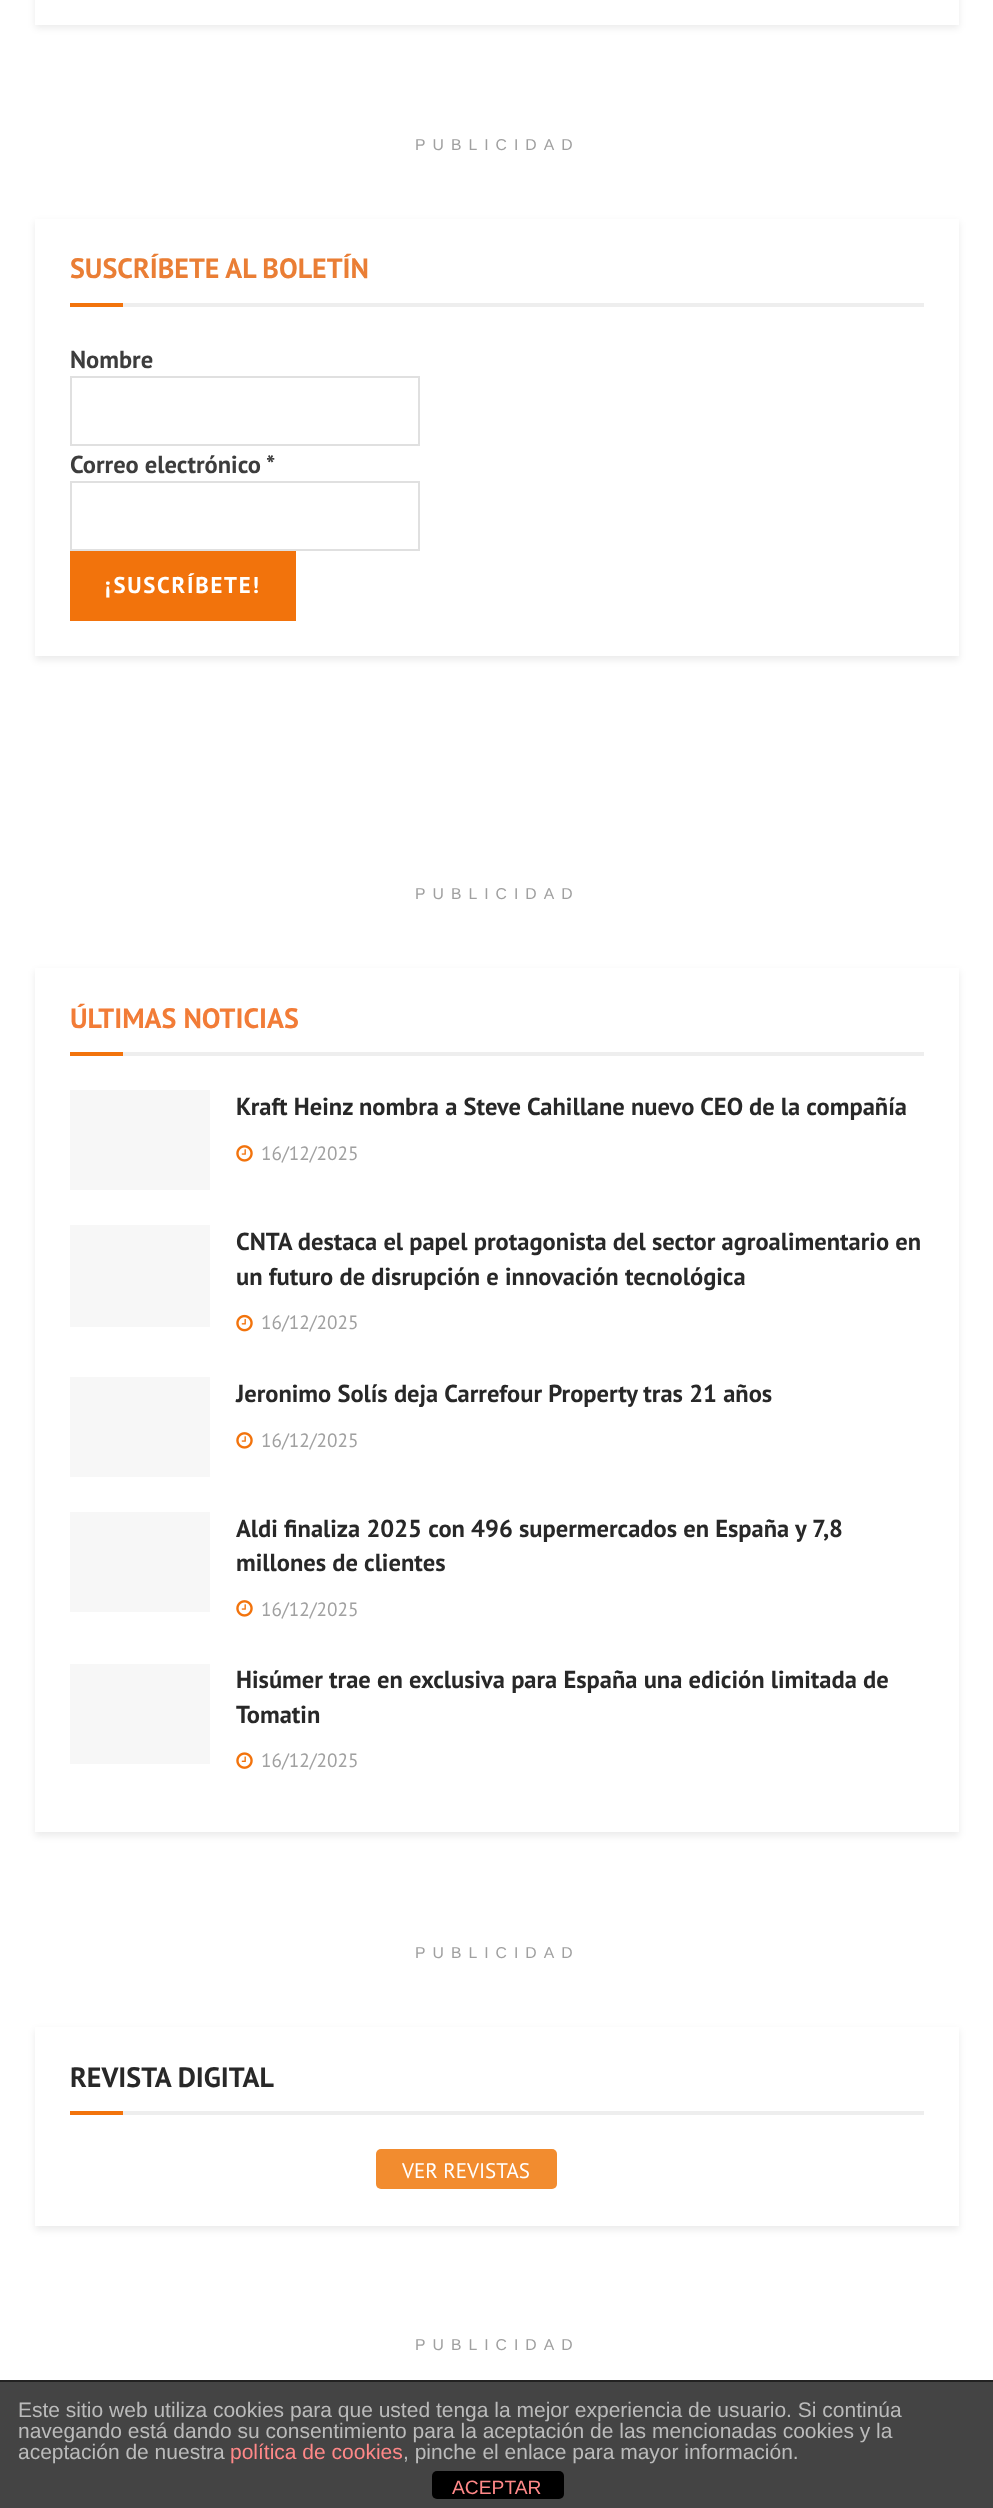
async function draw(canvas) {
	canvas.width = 993;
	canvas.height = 2508;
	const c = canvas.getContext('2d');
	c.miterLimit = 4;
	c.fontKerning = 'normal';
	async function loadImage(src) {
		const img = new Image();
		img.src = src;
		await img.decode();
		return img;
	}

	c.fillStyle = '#fff';
	c.fillRect(0, 0, 993, 2508);
	c.fillStyle = '#00000014';
	c.filter = 'blur(3.5px)';
	c.beginPath();
	c.rect(35, -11, 924, 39);
	c.fill();
	c.filter = 'none';
	c.fillStyle = '#fff';
	c.fillRect(35, 0, 924, 25);
	c.letterSpacing = '7px';
	c.font = '15.75px Liberation Sans';
	c.fillStyle = '#a0a0a0';
	c.fillText('PUBLICIDAD', 415, 150);
	c.save();
	c.beginPath();
	c.moveTo(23, 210);
	c.lineTo(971, 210);
	c.lineTo(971, 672);
	c.lineTo(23, 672);
	c.closePath();
	c.moveTo(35, 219);
	c.lineTo(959, 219);
	c.lineTo(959, 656);
	c.lineTo(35, 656);
	c.closePath();
	c.clip('evenodd');
	c.fillStyle = '#00000014';
	c.filter = 'blur(3.5px)';
	c.beginPath();
	c.rect(35, 222, 924, 438);
	c.fill();
	c.filter = 'none';
	c.restore();
	c.fillStyle = '#eee';
	c.fillRect(123, 303, 801, 4);
	c.letterSpacing = '0px';
	c.font = 'bold 28px PT Sans';
	c.fillStyle = '#ea7e35';
	c.fillText('SUSCRÍBETE AL BOLETÍN', 70, 278);
	c.fillStyle = '#f2730c';
	c.fillRect(70, 303, 53, 4);
	c.font = 'bold 24.5px PT Sans';
	c.fillStyle = '#3d3d3d';
	c.fillText('Nombre', 70, 368);
	c.strokeStyle = '#e0e0e0';
	c.lineWidth = 2;
	c.strokeRect(71, 377, 348, 68);
	c.fillText('Correo electrónico', 70, 473);
	c.fillText('*', 266, 473);
	c.strokeRect(71, 482, 348, 68);
	c.fillStyle = '#f2730c';
	c.fillRect(70, 551, 226, 70);
	c.letterSpacing = '1.75px';
	c.font = 'bold 22.75px PT Sans';
	c.fillStyle = '#fff';
	c.fillText('¡SUSCRÍBETE!', 105, 593);
	c.letterSpacing = '7px';
	c.font = '15.75px Liberation Sans';
	c.fillStyle = '#a0a0a0';
	c.fillText('PUBLICIDAD', 415, 899);
	c.save();
	c.beginPath();
	c.moveTo(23, 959);
	c.lineTo(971, 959);
	c.lineTo(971, 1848);
	c.lineTo(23, 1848);
	c.closePath();
	c.moveTo(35, 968);
	c.lineTo(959, 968);
	c.lineTo(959, 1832);
	c.lineTo(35, 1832);
	c.closePath();
	c.clip('evenodd');
	c.fillStyle = '#00000014';
	c.filter = 'blur(3.5px)';
	c.beginPath();
	c.rect(35, 971, 924, 865);
	c.fill();
	c.filter = 'none';
	c.restore();
	c.fillStyle = '#eee';
	c.fillRect(123, 1052, 801, 4);
	c.letterSpacing = '0px';
	c.font = 'bold 28px PT Sans';
	c.fillStyle = '#f27c37';
	c.fillText('ÚLTIMAS NOTICIAS', 70, 1028);
	c.fillStyle = '#f2730c';
	c.fillRect(70, 1052, 53, 4);
	c.fillStyle = '#f7f7f7';
	c.fillRect(70, 1090, 140, 100);
	c.font = 'bold 24.5px PT Sans';
	c.fillStyle = '#282828';
	c.fillText('Kraft Heinz nombra a Steve Cahillane nuevo CEO de la compañía', 236, 1115);
	c.drawImage(await loadImage('img1.png'), 236, 1145, 17, 17);
	c.font = '19.25px PT Sans';
	c.fillStyle = '#a0a0a0';
	c.fillText('16/12/2025', 261, 1160);
	c.fillStyle = '#f7f7f7';
	c.fillRect(70, 1225, 140, 102);
	c.font = 'bold 24.5px PT Sans';
	c.fillStyle = '#282828';
	c.fillText('CNTA destaca el papel protagonista del sector agroalimentario en', 236, 1250);
	c.fillText('un futuro de disrupción e innovación tecnológica', 236, 1285);
	c.drawImage(await loadImage('img2.png'), 236, 1314, 17, 18);
	c.font = '19.25px PT Sans';
	c.fillStyle = '#a0a0a0';
	c.fillText('16/12/2025', 261, 1329);
	c.fillStyle = '#f7f7f7';
	c.fillRect(70, 1377, 140, 100);
	c.font = 'bold 24.5px PT Sans';
	c.fillStyle = '#282828';
	c.fillText('Jeronimo Solís deja Carrefour Property tras 21 años', 236, 1402);
	c.drawImage(await loadImage('img1.png'), 236, 1432, 17, 17);
	c.font = '19.25px PT Sans';
	c.fillStyle = '#a0a0a0';
	c.fillText('16/12/2025', 261, 1447);
	c.fillStyle = '#f7f7f7';
	c.fillRect(70, 1512, 140, 100);
	c.font = 'bold 24.5px PT Sans';
	c.fillStyle = '#282828';
	c.fillText('Aldi finaliza 2025 con 496 supermercados en España y 7,8', 236, 1537);
	c.fillText('millones de clientes', 236, 1571);
	c.drawImage(await loadImage('img1.png'), 236, 1600, 17, 17);
	c.font = '19.25px PT Sans';
	c.fillStyle = '#a0a0a0';
	c.fillText('16/12/2025', 261, 1616);
	c.fillStyle = '#f7f7f7';
	c.fillRect(70, 1664, 140, 100);
	c.font = 'bold 24.5px PT Sans';
	c.fillStyle = '#282828';
	c.fillText('Hisúmer trae en exclusiva para España una edición limitada de', 236, 1688);
	c.fillText('Tomatin', 236, 1723);
	c.drawImage(await loadImage('img3.png'), 236, 1752, 17, 17);
	c.font = '19.25px PT Sans';
	c.fillStyle = '#a0a0a0';
	c.fillText('16/12/2025', 261, 1767);
	c.letterSpacing = '7px';
	c.font = '15.75px Liberation Sans';
	c.fillText('PUBLICIDAD', 415, 1958);
	c.save();
	c.beginPath();
	c.moveTo(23, 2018);
	c.lineTo(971, 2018);
	c.lineTo(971, 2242);
	c.lineTo(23, 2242);
	c.closePath();
	c.moveTo(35, 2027);
	c.lineTo(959, 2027);
	c.lineTo(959, 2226);
	c.lineTo(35, 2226);
	c.closePath();
	c.clip('evenodd');
	c.fillStyle = '#00000014';
	c.filter = 'blur(3.5px)';
	c.beginPath();
	c.rect(35, 2030, 924, 200);
	c.fill();
	c.filter = 'none';
	c.restore();
	c.fillStyle = '#eee';
	c.fillRect(123, 2111, 801, 4);
	c.letterSpacing = '0px';
	c.font = 'bold 28px PT Sans';
	c.fillStyle = '#282828';
	c.fillText('REVISTA DIGITAL', 70, 2087);
	c.fillStyle = '#f2730c';
	c.fillRect(70, 2111, 53, 4);
	c.fillStyle = '#f28c2f';
	c.beginPath();
	c.roundRect(376, 2149, 181, 40, 5);
	c.fill();
	c.font = '21px PT Sans';
	c.fillStyle = '#fff';
	c.fillText('VER REVISTAS', 402, 2178);
	c.letterSpacing = '7px';
	c.font = '15.75px Liberation Sans';
	c.fillStyle = '#a0a0a0';
	c.fillText('PUBLICIDAD', 415, 2350);
	c.fillStyle = '#444';
	c.fillRect(0, 2382, 993, 126);
	c.fillStyle = '#222';
	c.fillRect(0, 2380, 993, 2);
	c.letterSpacing = '0px';
	c.font = '21px Liberation Sans';
	c.fillStyle = '#bbb';
	for (const [text, x, y] of [
		['Este sitio web utiliza cookies para que usted tenga la mejor experiencia de usuario. Si continúa', 18, 2417],
		['navegando está dando su consentimiento para la aceptación de las mencionadas cookies y la', 18, 2438],
		['aceptación de nuestra', 18, 2459],
	]) {
		c.fillText(text, x, y);
	}
	c.fillStyle = '#f88';
	c.fillText('política de cookies', 230, 2459);
	c.fillStyle = '#bbb';
	c.fillText(', pinche el enlace para mayor información.', 403, 2459);
	c.fillStyle = '#000';
	c.beginPath();
	c.roundRect(432, 2471, 132, 28, 5);
	c.fill();
	c.font = '19.25px Liberation Sans';
	c.fillStyle = '#f88';
	c.fillText('ACEPTAR', 452, 2494);
}

draw(document.querySelector('canvas'));
